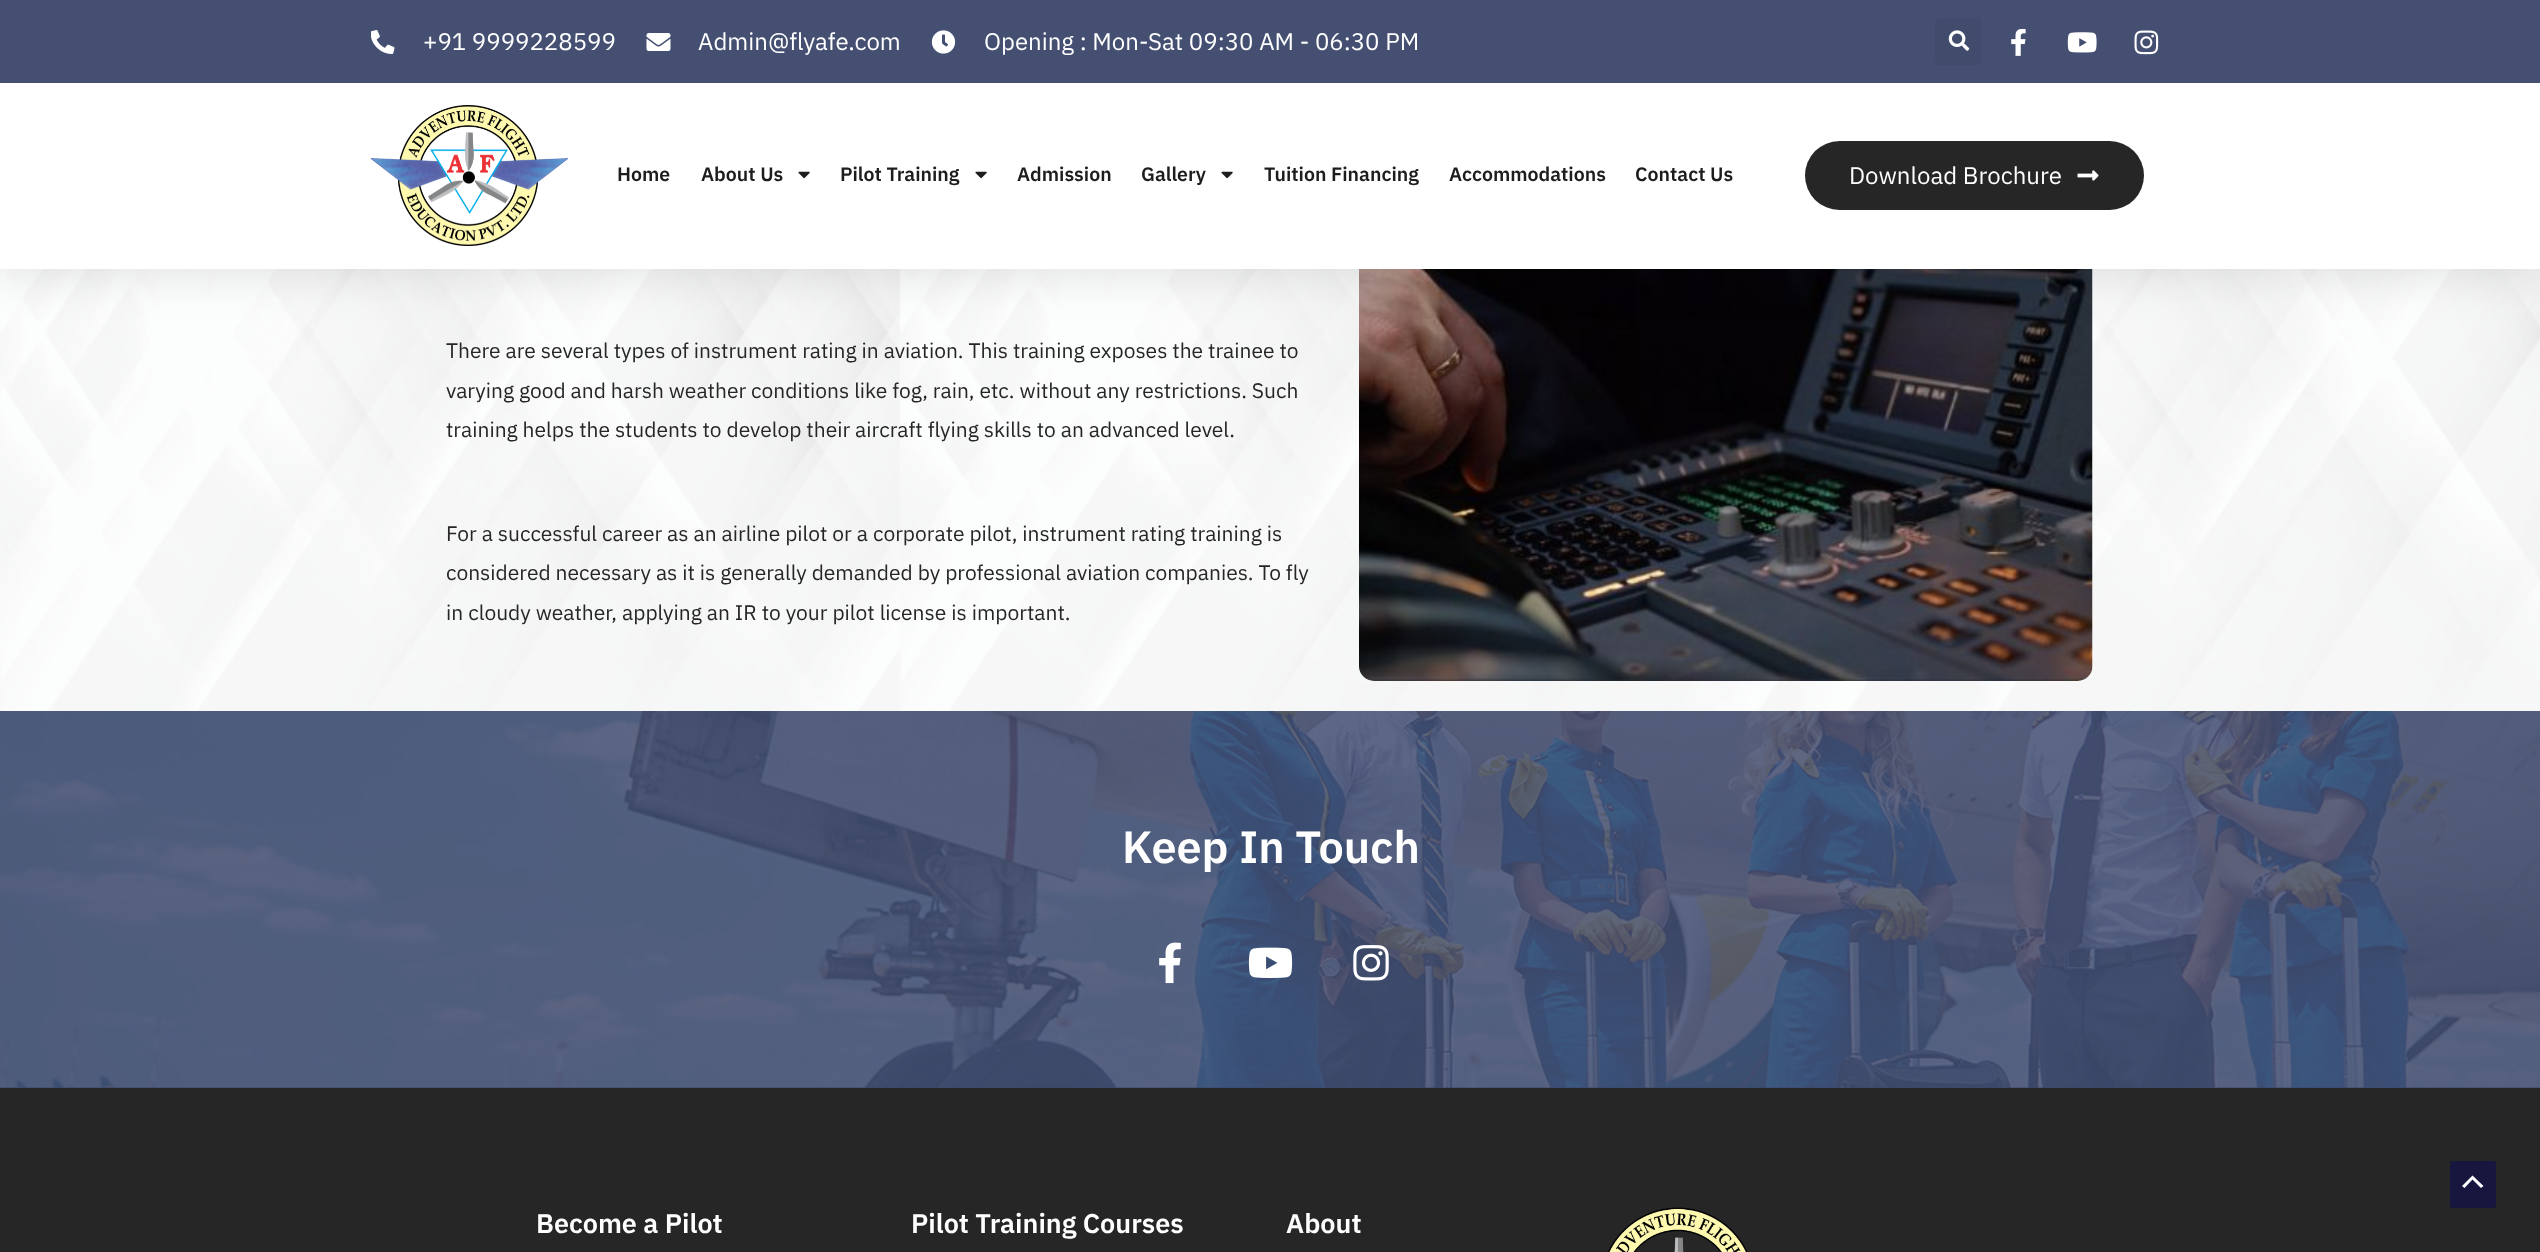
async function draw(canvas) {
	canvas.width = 2540;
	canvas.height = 1252;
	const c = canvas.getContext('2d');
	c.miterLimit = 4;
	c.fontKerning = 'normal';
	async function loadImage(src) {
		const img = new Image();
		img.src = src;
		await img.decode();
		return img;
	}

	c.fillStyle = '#fff';
	c.fillRect(0, 0, 2540, 1252);
	c.drawImage(await loadImage('img11.png'), 0, 269, 2540, 442);
	c.drawImage(await loadImage('img12.png'), 1359, 269, 734, 412);
	c.fillStyle = '#0000001a';
	c.filter = 'blur(22.5px)';
	c.beginPath();
	c.rect(0, 8, 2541, 268);
	c.fill();
	c.filter = 'none';
	c.fillStyle = '#444f72';
	c.fillRect(0, 0, 2540, 83);
	c.drawImage(await loadImage('img1.png'), 371, 30, 24, 24);
	c.font = '24px IBM Plex Sans';
	c.fillStyle = '#fff';
	c.fillText('+91 9999228599', 423, 50);
	c.drawImage(await loadImage('img2.png'), 646, 33, 25, 18);
	c.fillText('Admin@flyafe.com', 698, 50);
	c.drawImage(await loadImage('img3.png'), 931, 30, 25, 24);
	c.fillText('Opening : Mon-Sat 09:30 AM - 06:30 PM', 984, 50);
	c.fillStyle = '#414b6c';
	c.beginPath();
	c.roundRect(1935, 18, 47, 47, 5);
	c.fill();
	c.drawImage(await loadImage('img4.png'), 1948, 30, 22, 21);
	c.drawImage(await loadImage('img5.png'), 2011, 29, 15, 27);
	c.drawImage(await loadImage('img6.png'), 2067, 32, 30, 21);
	c.drawImage(await loadImage('img7.png'), 2134, 30, 25, 25);
	c.fillStyle = '#fff';
	c.fillRect(0, 83, 2540, 186);
	c.drawImage(await loadImage('img8.png'), 370, 105, 199, 141);
	c.font = '600 19.5px IBM Plex Sans';
	c.fillStyle = '#1d1d1d';
	c.fillText('Home', 617, 181);
	c.fillText('About Us', 701, 181);
	c.drawImage(await loadImage('img9.png'), 798, 171, 12, 8);
	c.fillText('Pilot Training', 840, 181);
	c.drawImage(await loadImage('img9.png'), 975, 171, 12, 8);
	c.fillText('Admission', 1017, 181);
	c.fillText('Gallery', 1141, 181);
	c.drawImage(await loadImage('img9.png'), 1221, 171, 12, 8);
	for (const [text, x, y] of [
		['Tuition Financing', 1264, 181],
		['Accommodations', 1449, 181],
		['Contact Us', 1635, 181],
	]) {
		c.fillText(text, x, y);
	}
	c.fillStyle = '#262626';
	c.beginPath();
	c.roundRect(1805, 141, 339, 69, 34.5);
	c.fill();
	c.font = '24px IBM Plex Sans';
	c.fillStyle = '#fff';
	c.fillText('Download Brochure', 1849, 184);
	c.drawImage(await loadImage('img10.png'), 2077, 170, 22, 11);
	c.font = '21px IBM Plex Sans';
	c.fillStyle = '#262626';
	for (const [text, x, y] of [
		['There are several types of instrument rating in aviation. This training exposes the trainee to', 446, 358],
		['varying good and harsh weather conditions like fog, rain, etc. without any restrictions. Such', 446, 398],
		['training helps the students to develop their aircraft flying skills to an advanced level.', 446, 437],
		['For a successful career as an airline pilot or a corporate pilot, instrument rating training is', 446, 541],
		['considered necessary as it is generally demanded by professional aviation companies. To fly', 446, 580],
		['in cloudy weather, applying an IR to your pilot license is important.', 446, 620],
	]) {
		c.fillText(text, x, y);
	}
	c.fillStyle = '#3d4766';
	c.fillRect(0, 1087, 2540, 1);
	c.drawImage(await loadImage('img13.png'), 0, 711, 2540, 377);
	c.font = '600 45px IBM Plex Sans';
	c.fillStyle = '#fff';
	c.fillText('Keep In Touch', 1122, 863);
	c.drawImage(await loadImage('img14.png'), 1159, 942, 22, 42);
	c.drawImage(await loadImage('img15.png'), 1248, 947, 45, 31);
	c.drawImage(await loadImage('img16.png'), 1353, 945, 36, 36);
	c.fillStyle = '#262626';
	c.fillRect(0, 1088, 2540, 164);
	c.font = '600 27px IBM Plex Sans';
	c.fillStyle = '#fff';
	for (const [text, x, y] of [
		['Become a Pilot', 536, 1233],
		['Pilot Training Courses', 911, 1233],
		['About', 1286, 1233],
	]) {
		c.fillText(text, x, y);
	}
	c.drawImage(await loadImage('img17.png'), 1608, 1207, 140, 45);
	c.fillStyle = '#16163f';
	c.beginPath();
	c.roundRect(2450, 1161, 46, 47, 3);
	c.fill();
	c.fillStyle = '#fff';
	c.beginPath();
	c.moveTo(2483.5, 1186);
	c.lineTo(2472.5, 1175.5);
	c.lineTo(2462, 1186);
	c.lineTo(2464.5, 1188);
	c.lineTo(2472.5, 1179.5);
	c.lineTo(2481, 1188);
	c.closePath();
	c.fill();
}

draw(document.querySelector('canvas'));
